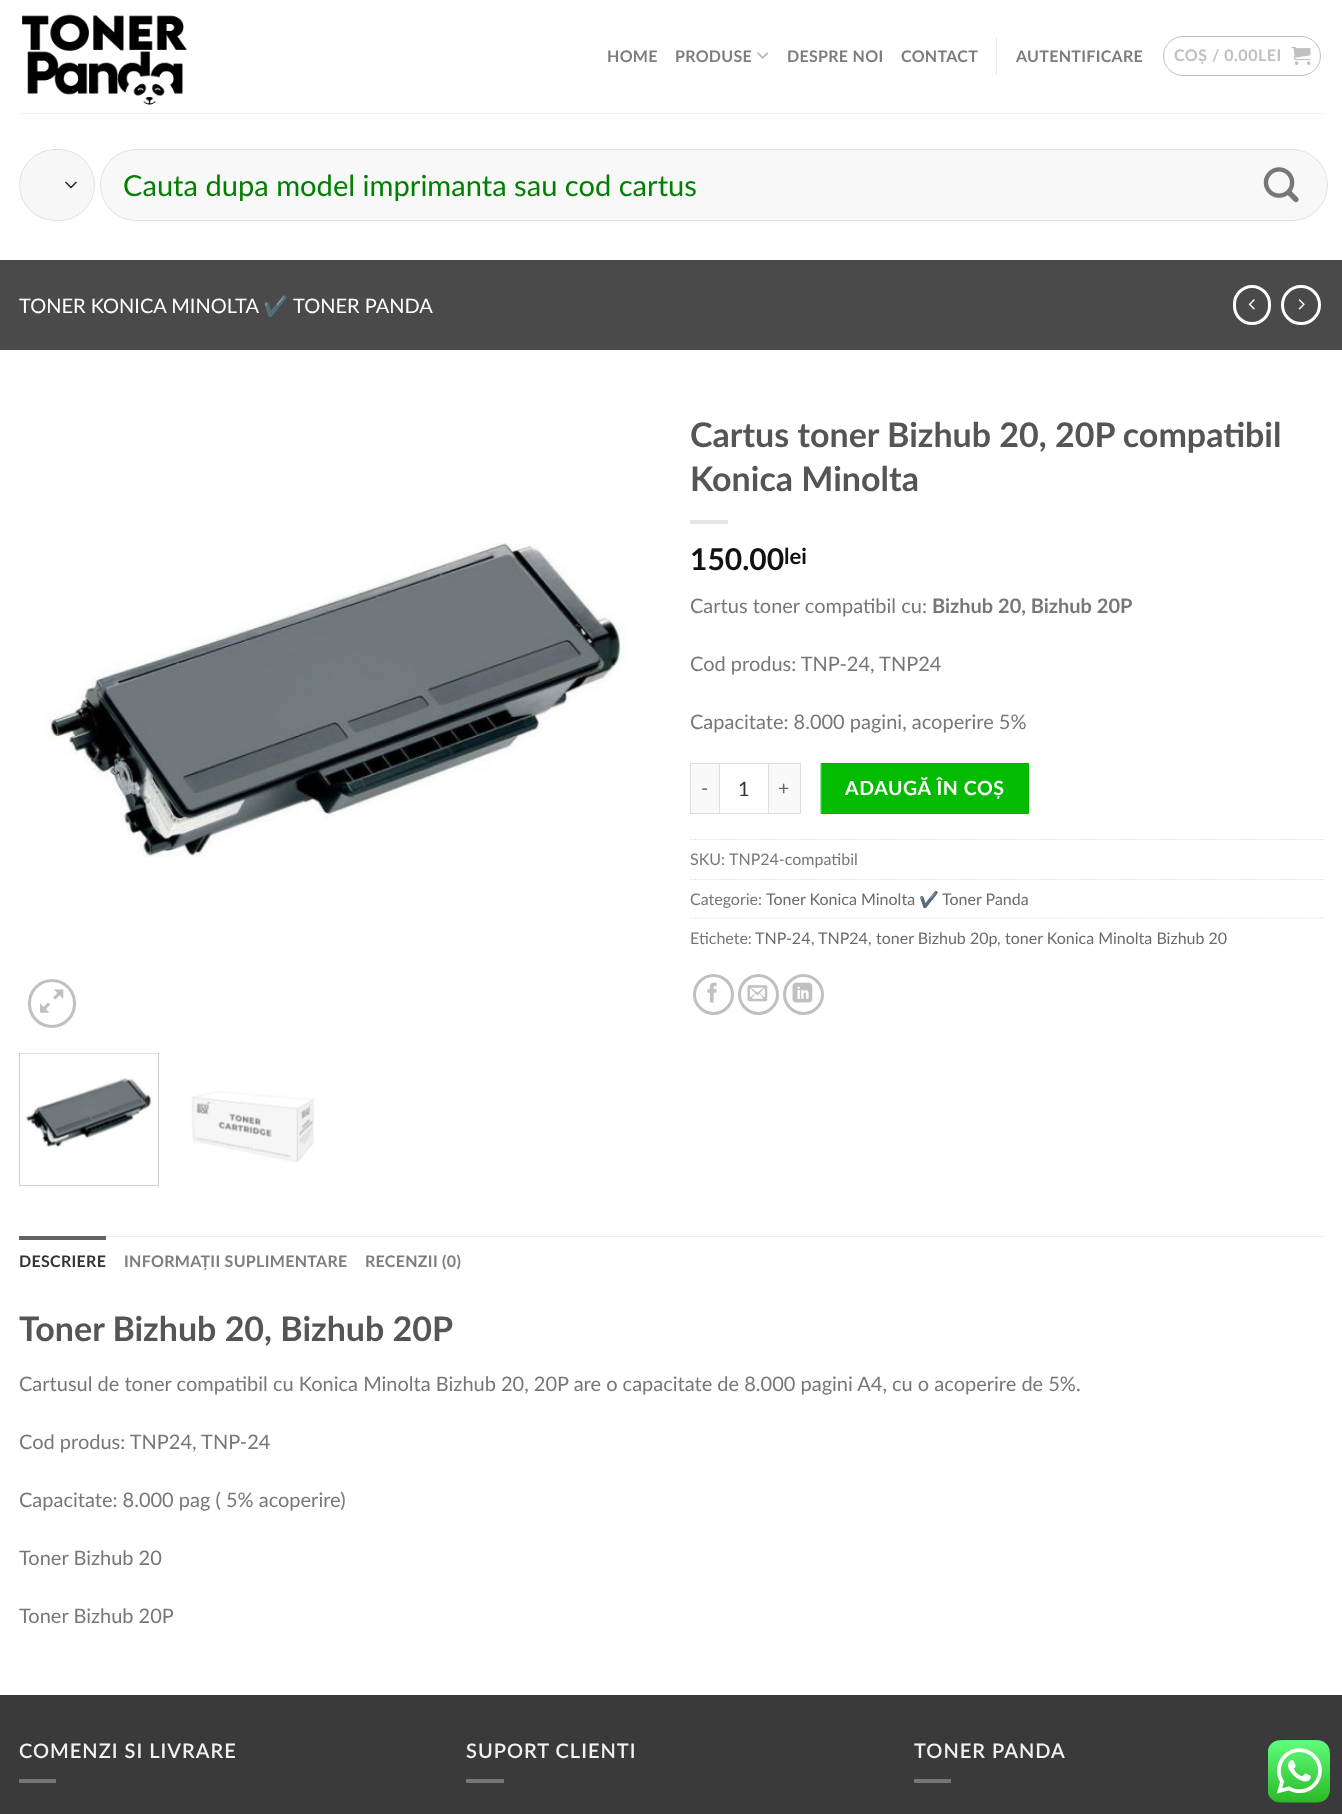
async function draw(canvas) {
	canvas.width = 1342;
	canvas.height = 1814;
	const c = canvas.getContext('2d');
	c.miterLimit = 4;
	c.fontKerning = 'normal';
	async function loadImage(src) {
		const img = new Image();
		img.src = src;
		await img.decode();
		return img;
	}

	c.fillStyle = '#fff';
	c.fillRect(0, 0, 1342, 1814);
	c.drawImage(await loadImage('img1.png'), 22, 14, 165, 91);
	c.letterSpacing = '0.3px';
	c.font = 'bold 16px Lato';
	c.fillStyle = '#7d7d7d';
	c.fillText('HOME', 607, 62);
	c.fillText('PRODUSE', 675, 62);
	c.drawImage(await loadImage('img2.png'), 757, 52, 12, 7);
	c.fillText('DESPRE NOI', 787, 62);
	c.fillText('CONTACT', 901, 62);
	c.fillStyle = '#e6e6e6';
	c.fillRect(996, 38, 1, 37);
	c.fillStyle = '#7d7d7d';
	c.fillText('AUTENTIFICARE', 1016, 62);
	c.beginPath();
	c.roundRect(1163.5, 36.5, 157, 39, 19.5);
	c.strokeStyle = '#c0c0c0';
	c.stroke();
	c.letterSpacing = '0.5px';
	c.fillStyle = '#c0c0c0';
	c.fillText('COȘ / 0.00LEI', 1174, 61);
	c.drawImage(await loadImage('img3.png'), 1291, 46, 20, 19);
	c.fillStyle = '#f1f1f1';
	c.fillRect(19, 113, 1305, 1);
	c.fillStyle = '#f7f7f7';
	c.beginPath();
	c.roundRect(19, 149, 76, 72, 36);
	c.fill();
	c.beginPath();
	c.moveTo(66, 182.5);
	c.lineTo(71, 187.5);
	c.lineTo(76, 182.5);
	c.strokeStyle = '#333';
	c.lineWidth = 1.7;
	c.lineCap = 'round';
	c.lineJoin = 'round';
	c.stroke();
	c.beginPath();
	c.roundRect(19.5, 149.5, 75, 71, 35.5);
	c.strokeStyle = '#00000017';
	c.lineWidth = 1;
	c.lineJoin = 'miter';
	c.stroke();
	c.fillStyle = '#f8f8f8';
	c.beginPath();
	c.roundRect(100, 149, 1228, 72, 36);
	c.fill();
	c.beginPath();
	c.roundRect(100.5, 149.5, 1227, 71, 35.5);
	c.stroke();
	c.letterSpacing = '0px';
	c.font = '29.1px Lato';
	c.fillStyle = '#008000';
	c.fillText('Cauta dupa model imprimanta sau cod cartus', 123, 196);
	c.drawImage(await loadImage('img4.png'), 1263, 167, 36, 36);
	c.fillStyle = '#4a4a4a';
	c.fillRect(0, 260, 1342, 90);
	c.font = '20px Lato';
	c.fillStyle = '#fff';
	c.fillText('TONER KONICA MINOLTA', 19, 313);
	c.font = '20px Noto Color Emoji';
	c.fillText('✔️', 263, 313);
	c.font = '20px Lato';
	c.fillText('TONER PANDA', 293, 313);
	c.beginPath();
	c.roundRect(1234.5, 286.5, 35, 37, 17.5);
	c.strokeStyle = '#fff';
	c.lineWidth = 3;
	c.stroke();
	c.drawImage(await loadImage('img5.png'), 1248, 299, 7, 11);
	c.beginPath();
	c.arc(1301, 305, 18.5, 0, 2 * Math.PI);
	c.stroke();
	c.drawImage(await loadImage('img6.png'), 1298, 299, 7, 11);
	c.drawImage(await loadImage('img7.png'), 45, 543, 582, 315);
	c.beginPath();
	c.roundRect(29.5, 980.5, 45, 46, 22.5);
	c.strokeStyle = '#c0c0c0';
	c.stroke();
	c.drawImage(await loadImage('img8.png'), 40, 989, 24, 24);
	c.strokeStyle = '#ccc';
	c.lineWidth = 1;
	c.strokeRect(19.5, 1053.5, 139, 132);
	c.drawImage(await loadImage('img9.png'), 19, 1053, 139, 133);
	c.drawImage(await loadImage('img10.png'), 191, 1091, 123, 72);
	c.font = 'bold 34px Lato';
	c.fillStyle = '#555';
	c.fillText('Cartus toner Bizhub 20, 20P compatibil', 690, 447);
	c.fillText('Konica Minolta', 690, 491);
	c.fillStyle = '#e6e6e6';
	c.fillRect(690, 520, 38, 4);
	c.font = 'bold 30px Lato';
	c.fillStyle = '#111';
	c.fillText('150.00', 690, 570);
	c.font = 'bold 22px Lato';
	c.fillText('lei', 784, 564);
	c.font = '20px Lato';
	c.fillStyle = '#777';
	c.fillText('Cartus toner compatibil cu:', 690, 613);
	c.font = 'bold 20px Lato';
	c.fillText('Bizhub 20, Bizhub 20P', 932, 613);
	c.font = '20px Lato';
	c.fillText('Cod produs: TNP-24, TNP24', 690, 671);
	c.fillText('Capacitate: 8.000 pagini, acoperire 5%', 690, 729);
	for (const [x, y, w, h, color] of [
		[691, 764, 28, 49, '#f9f9f9'],
		[690, 763, 29, 1, '#ddd'],
		[690, 813, 29, 1, '#ddd'],
		[690, 763, 1, 51, '#ddd'],
	]) {
		c.fillStyle = color;
		c.fillRect(x, y, w, h);
	}
	c.letterSpacing = '0.6px';
	c.font = '19.5px Lato';
	c.fillStyle = '#666';
	c.fillText('-', 701, 795);
	c.strokeStyle = '#ddd';
	c.strokeRect(719.5, 763.5, 49, 50);
	c.letterSpacing = '0px';
	c.font = '20px Lato';
	c.fillStyle = '#333';
	c.fillText('1', 738, 796);
	for (const [x, y, w, h, color] of [
		[769, 764, 31, 49, '#f9f9f9'],
		[769, 763, 32, 1, '#ddd'],
		[800, 763, 1, 51, '#ddd'],
		[769, 813, 32, 1, '#ddd'],
	]) {
		c.fillStyle = color;
		c.fillRect(x, y, w, h);
	}
	c.letterSpacing = '0.6px';
	c.font = '19.5px Lato';
	c.fillStyle = '#666';
	c.fillText('+', 778, 795);
	c.fillStyle = '#03bb00';
	c.beginPath();
	c.rect(821.5, 763.5, 207, 50);
	c.fill();
	c.strokeStyle = '#03b200';
	c.stroke();
	c.font = 'bold 19.5px Lato';
	c.fillStyle = '#fff';
	c.fillText('ADAUGĂ ÎN COȘ', 845, 795);
	c.beginPath();
	c.moveTo(690, 839.5);
	c.lineTo(1324, 839.5);
	c.strokeStyle = '#ddd';
	c.lineWidth = 1.2;
	c.lineCap = 'butt';
	c.setLineDash([1.25, 1.25]);
	c.stroke();
	c.letterSpacing = '0px';
	c.font = '16px Lato';
	c.fillStyle = '#777';
	c.fillText('SKU:', 690, 865);
	c.fillText('TNP24-compatibil', 729, 865);
	c.beginPath();
	c.moveTo(690, 879.5);
	c.lineTo(1324, 879.5);
	c.stroke();
	c.fillText('Categorie:', 690, 905);
	c.fillStyle = '#6a6b6c';
	c.fillText('Toner Konica Minolta', 766, 905);
	c.font = '16px Noto Color Emoji';
	c.fillText('✔️', 919, 905);
	c.font = '16px Lato';
	c.fillText('Toner Panda', 942, 905);
	c.beginPath();
	c.moveTo(690, 918);
	c.lineTo(1324, 918);
	c.stroke();
	c.fillStyle = '#777';
	c.fillText('Etichete:', 690, 944);
	c.fillStyle = '#6a6b6c';
	c.fillText('TNP-24', 755, 944);
	c.fillStyle = '#777';
	c.fillText(',', 811, 944);
	c.fillStyle = '#6a6b6c';
	c.fillText('TNP24', 818, 944);
	c.fillStyle = '#777';
	c.fillText(',', 868, 944);
	c.fillStyle = '#6a6b6c';
	c.fillText('toner Bizhub 20p', 876, 944);
	c.fillStyle = '#777';
	c.fillText(',', 997, 944);
	c.fillStyle = '#6a6b6c';
	c.fillText('toner Konica Minolta Bizhub 20', 1005, 944);
	c.beginPath();
	c.arc(713.5, 994.5, 19, 0, 2 * Math.PI);
	c.strokeStyle = '#c0c0c0';
	c.lineWidth = 3;
	c.setLineDash([]);
	c.stroke();
	c.drawImage(await loadImage('img11.png'), 707, 982, 10, 21);
	c.beginPath();
	c.arc(758.5, 994.5, 19, 0, 2 * Math.PI);
	c.stroke();
	c.drawImage(await loadImage('img12.png'), 747, 985, 21, 17);
	c.beginPath();
	c.arc(803.5, 994.5, 19, 0, 2 * Math.PI);
	c.stroke();
	c.drawImage(await loadImage('img13.png'), 792, 982, 21, 21);
	c.fillStyle = '#ececec';
	c.fillRect(106, 1236, 1218, 1);
	c.fillStyle = '#636363';
	c.fillRect(19, 1236, 87, 4);
	c.letterSpacing = '0.3px';
	c.font = 'bold 16px Lato';
	c.fillStyle = '#333';
	c.fillText('DESCRIERE', 19, 1267);
	c.fillStyle = '#7d7d7d';
	c.fillText('INFORMAȚII SUPLIMENTARE', 124, 1267);
	c.fillText('RECENZII (0)', 365, 1267);
	c.letterSpacing = '0px';
	c.font = 'bold 34px Lato';
	c.fillStyle = '#555';
	c.fillText('Toner Bizhub 20, Bizhub 20P', 19, 1341);
	c.font = '20px Lato';
	c.fillStyle = '#777';
	for (const [text, x, y] of [
		['Cartusul de toner compatibil cu Konica Minolta Bizhub 20, 20P are o capacitate de 8.000 pagini A4, cu o acoperire de 5%.', 19, 1391],
		['Cod produs: TNP24, TNP-24', 19, 1449],
		['Capacitate: 8.000 pag ( 5% acoperire)', 19, 1507],
		['Toner Bizhub 20', 19, 1565],
		['Toner Bizhub 20P', 19, 1623],
	]) {
		c.fillText(text, x, y);
	}
	c.fillStyle = '#3a3a3a';
	c.fillRect(0, 1696, 1342, 118);
	c.fillStyle = '#373737';
	c.fillRect(0, 1695, 1342, 1);
	c.letterSpacing = '1px';
	c.font = '600 20px Lato';
	c.fillStyle = '#f1f1f1';
	c.fillText('COMENZI SI LIVRARE', 19, 1758);
	c.fillStyle = '#757575';
	c.fillRect(19, 1779, 37, 4);
	c.fillStyle = '#f1f1f1';
	c.fillText('SUPORT CLIENTI', 466, 1758);
	c.fillStyle = '#757575';
	c.fillRect(466, 1779, 38, 4);
	c.fillStyle = '#f1f1f1';
	c.fillText('TONER PANDA', 914, 1758);
	c.fillStyle = '#757575';
	c.fillRect(914, 1779, 37, 4);
	c.drawImage(await loadImage('img14.png'), 1268, 1740, 62, 63);
}

draw(document.querySelector('canvas'));
